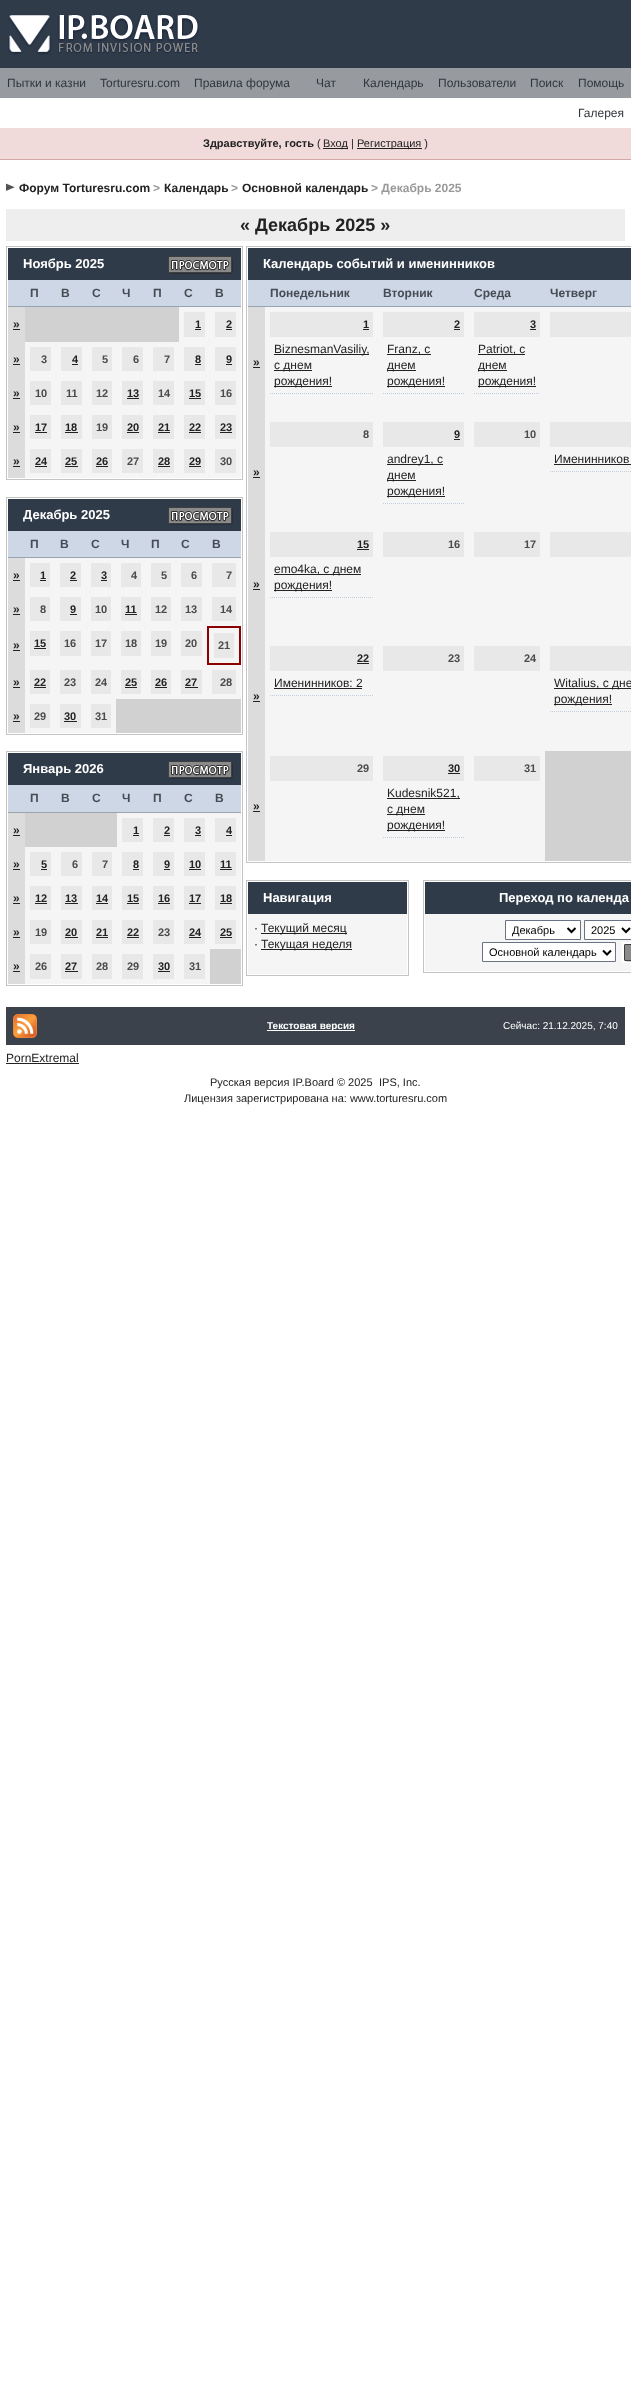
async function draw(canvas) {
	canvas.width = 631;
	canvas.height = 2400;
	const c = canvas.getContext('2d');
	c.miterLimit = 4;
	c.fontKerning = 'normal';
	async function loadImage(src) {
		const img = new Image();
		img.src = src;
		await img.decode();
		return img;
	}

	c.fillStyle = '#fff';
	c.fillRect(0, 0, 631, 2400);
	c.fillStyle = '#303b4a';
	c.fillRect(0, 0, 631, 68);
	c.drawImage(await loadImage('img1.png'), 8, 14, 191, 41);
	c.fillStyle = '#979ba0';
	c.fillRect(0, 68, 631, 30);
	c.font = '12px Liberation Sans';
	c.fillStyle = '#31363d';
	for (const [text, x, y] of [
		['Пытки и казни', 7, 87],
		['Torturesru.com', 100, 87],
		['Правила форума', 194, 87],
		['Чат', 316, 87],
		['Календарь', 363, 87],
		['Пользователи', 438, 87],
		['Поиск', 530, 87],
		['Помощь', 578, 87],
		['Галерея', 578, 117],
	]) {
		c.fillText(text, x, y);
	}
	c.fillStyle = '#f1dada';
	c.fillRect(0, 128, 631, 31);
	c.fillStyle = '#d1a9a9';
	c.fillRect(0, 159, 631, 1);
	c.font = 'bold 11px Liberation Sans';
	c.fillStyle = '#222';
	c.fillText('Здравствуйте, гость', 203, 147);
	c.font = '11px Liberation Sans';
	c.fillText('(', 317, 147);
	c.fillRect(323, 148, 25, 1);
	c.fillText('Вход |', 323, 147);
	c.fillRect(357, 148, 65, 1);
	c.fillText('Регистрация )', 357, 147);
	c.drawImage(await loadImage('img2.png'), 6, 183, 9, 8);
	c.font = 'bold 12px Liberation Sans';
	c.fillText('Форум Torturesru.com', 19, 192);
	c.fillStyle = '#999';
	c.fillText('>', 153, 192);
	c.fillStyle = '#222';
	c.fillText('Календарь', 164, 192);
	c.fillStyle = '#999';
	c.fillText('>', 231, 192);
	c.fillStyle = '#222';
	c.fillText('Основной календарь', 242, 192);
	c.fillStyle = '#999';
	c.fillText('> Декабрь 2025', 371, 192);
	c.fillStyle = '#eee';
	c.fillRect(6, 209, 619, 32);
	c.font = 'bold 18px Liberation Sans';
	c.fillStyle = '#222';
	c.fillText('« Декабрь 2025 »', 240, 231);
	c.strokeStyle = '#c4c4c4';
	c.strokeRect(6.5, 246.5, 236, 233);
	c.fillStyle = '#303b4a';
	c.fillRect(8, 248, 233, 32);
	c.font = 'bold 13px Liberation Sans';
	c.fillStyle = '#fff';
	c.fillText('Ноябрь 2025', 23, 268);
	c.drawImage(await loadImage('img3.png'), 168, 256, 65, 18);
	c.fillStyle = '#ced7e5';
	c.fillRect(8, 280, 233, 26);
	c.fillStyle = '#9aa4b1';
	c.fillRect(8, 306, 233, 1);
	c.font = 'bold 12px Liberation Sans';
	c.fillStyle = '#464c55';
	for (const [text, x, y] of [
		['П', 30, 297],
		['В', 61, 297],
		['С', 92, 297],
		['Ч', 122, 297],
		['П', 153, 297],
		['С', 184, 297],
		['В', 215, 297],
	]) {
		c.fillText(text, x, y);
	}
	c.fillStyle = '#dcdcdc';
	c.fillRect(8, 307, 17, 171);
	c.fillStyle = '#222';
	c.fillText('»', 13, 328);
	for (const [x, y, w, h, color] of [
		[13, 329, 7, 1, '#222'],
		[25, 307, 154, 35, '#d1d1d1'],
		[179, 307, 62, 35, '#f5f5f5'],
		[184, 312, 21, 25, '#e8e8e8'],
	]) {
		c.fillStyle = color;
		c.fillRect(x, y, w, h);
	}
	c.font = 'bold 11px Liberation Sans';
	c.fillStyle = '#222';
	c.fillText('1', 195, 328);
	c.fillRect(195, 329, 6, 1);
	c.fillStyle = '#e8e8e8';
	c.fillRect(215, 312, 21, 25);
	c.fillStyle = '#222';
	c.fillText('2', 226, 328);
	c.fillRect(226, 329, 6, 1);
	c.font = 'bold 12px Liberation Sans';
	c.fillText('»', 13, 363);
	for (const [x, y, w, h, color] of [
		[13, 364, 7, 1, '#222'],
		[25, 342, 216, 34, '#f5f5f5'],
		[30, 347, 21, 24, '#e8e8e8'],
	]) {
		c.fillStyle = color;
		c.fillRect(x, y, w, h);
	}
	c.font = 'bold 11px Liberation Sans';
	c.fillStyle = '#4b4b4b';
	c.fillText('3', 41, 363);
	c.fillStyle = '#e8e8e8';
	c.fillRect(61, 347, 21, 24);
	c.fillStyle = '#222';
	c.fillText('4', 72, 363);
	c.fillRect(72, 364, 6, 1);
	c.fillStyle = '#e8e8e8';
	c.fillRect(92, 347, 20, 24);
	c.fillStyle = '#4b4b4b';
	c.fillText('5', 102, 363);
	c.fillStyle = '#e8e8e8';
	c.fillRect(122, 347, 21, 24);
	c.fillStyle = '#4b4b4b';
	c.fillText('6', 133, 363);
	c.fillStyle = '#e8e8e8';
	c.fillRect(153, 347, 21, 24);
	c.fillStyle = '#4b4b4b';
	c.fillText('7', 164, 363);
	c.fillStyle = '#e8e8e8';
	c.fillRect(184, 347, 21, 24);
	c.fillStyle = '#222';
	c.fillText('8', 195, 363);
	c.fillRect(195, 364, 6, 1);
	c.fillStyle = '#e8e8e8';
	c.fillRect(215, 347, 21, 24);
	c.fillStyle = '#222';
	c.fillText('9', 226, 363);
	c.fillRect(226, 364, 6, 1);
	c.font = 'bold 12px Liberation Sans';
	c.fillText('»', 13, 397);
	for (const [x, y, w, h, color] of [
		[13, 398, 7, 1, '#222'],
		[25, 376, 216, 34, '#f5f5f5'],
		[30, 381, 21, 24, '#e8e8e8'],
	]) {
		c.fillStyle = color;
		c.fillRect(x, y, w, h);
	}
	c.font = 'bold 11px Liberation Sans';
	c.fillStyle = '#4b4b4b';
	c.fillText('10', 35, 397);
	c.fillStyle = '#e8e8e8';
	c.fillRect(61, 381, 21, 24);
	c.fillStyle = '#4b4b4b';
	c.fillText('11', 66, 397);
	c.fillStyle = '#e8e8e8';
	c.fillRect(92, 381, 20, 24);
	c.fillStyle = '#4b4b4b';
	c.fillText('12', 96, 397);
	c.fillStyle = '#e8e8e8';
	c.fillRect(122, 381, 21, 24);
	c.fillStyle = '#222';
	c.fillText('13', 127, 397);
	c.fillRect(127, 398, 12, 1);
	c.fillStyle = '#e8e8e8';
	c.fillRect(153, 381, 21, 24);
	c.fillStyle = '#4b4b4b';
	c.fillText('14', 158, 397);
	c.fillStyle = '#e8e8e8';
	c.fillRect(184, 381, 21, 24);
	c.fillStyle = '#222';
	c.fillText('15', 189, 397);
	c.fillRect(189, 398, 12, 1);
	c.fillStyle = '#e8e8e8';
	c.fillRect(215, 381, 21, 24);
	c.fillStyle = '#4b4b4b';
	c.fillText('16', 220, 397);
	c.font = 'bold 12px Liberation Sans';
	c.fillStyle = '#222';
	c.fillText('»', 13, 431);
	for (const [x, y, w, h, color] of [
		[13, 432, 7, 1, '#222'],
		[25, 410, 216, 34, '#f5f5f5'],
		[30, 415, 21, 24, '#e8e8e8'],
	]) {
		c.fillStyle = color;
		c.fillRect(x, y, w, h);
	}
	c.font = 'bold 11px Liberation Sans';
	c.fillStyle = '#222';
	c.fillText('17', 35, 431);
	c.fillRect(35, 432, 12, 1);
	c.fillStyle = '#e8e8e8';
	c.fillRect(61, 415, 21, 24);
	c.fillStyle = '#222';
	c.fillText('18', 65, 431);
	c.fillRect(65, 432, 13, 1);
	c.fillStyle = '#e8e8e8';
	c.fillRect(92, 415, 20, 24);
	c.fillStyle = '#4b4b4b';
	c.fillText('19', 96, 431);
	c.fillStyle = '#e8e8e8';
	c.fillRect(122, 415, 21, 24);
	c.fillStyle = '#222';
	c.fillText('20', 127, 431);
	c.fillRect(127, 432, 12, 1);
	c.fillStyle = '#e8e8e8';
	c.fillRect(153, 415, 21, 24);
	c.fillStyle = '#222';
	c.fillText('21', 158, 431);
	c.fillRect(158, 432, 12, 1);
	c.fillStyle = '#e8e8e8';
	c.fillRect(184, 415, 21, 24);
	c.fillStyle = '#222';
	c.fillText('22', 189, 431);
	c.fillRect(189, 432, 12, 1);
	c.fillStyle = '#e8e8e8';
	c.fillRect(215, 415, 21, 24);
	c.fillStyle = '#222';
	c.fillText('23', 220, 431);
	c.fillRect(220, 432, 12, 1);
	c.font = 'bold 12px Liberation Sans';
	c.fillText('»', 13, 465);
	for (const [x, y, w, h, color] of [
		[13, 466, 7, 1, '#222'],
		[25, 444, 216, 34, '#f5f5f5'],
		[30, 449, 21, 24, '#e8e8e8'],
	]) {
		c.fillStyle = color;
		c.fillRect(x, y, w, h);
	}
	c.font = 'bold 11px Liberation Sans';
	c.fillStyle = '#222';
	c.fillText('24', 35, 465);
	c.fillRect(35, 466, 12, 1);
	c.fillStyle = '#e8e8e8';
	c.fillRect(61, 449, 21, 24);
	c.fillStyle = '#222';
	c.fillText('25', 65, 465);
	c.fillRect(65, 466, 13, 1);
	c.fillStyle = '#e8e8e8';
	c.fillRect(92, 449, 20, 24);
	c.fillStyle = '#222';
	c.fillText('26', 96, 465);
	c.fillRect(96, 466, 12, 1);
	c.fillStyle = '#e8e8e8';
	c.fillRect(122, 449, 21, 24);
	c.fillStyle = '#4b4b4b';
	c.fillText('27', 127, 465);
	c.fillStyle = '#e8e8e8';
	c.fillRect(153, 449, 21, 24);
	c.fillStyle = '#222';
	c.fillText('28', 158, 465);
	c.fillRect(158, 466, 12, 1);
	c.fillStyle = '#e8e8e8';
	c.fillRect(184, 449, 21, 24);
	c.fillStyle = '#222';
	c.fillText('29', 189, 465);
	c.fillRect(189, 466, 12, 1);
	c.fillStyle = '#e8e8e8';
	c.fillRect(215, 449, 21, 24);
	c.fillStyle = '#4b4b4b';
	c.fillText('30', 220, 465);
	c.strokeRect(6.5, 497.5, 236, 237);
	c.fillStyle = '#303b4a';
	c.fillRect(8, 499, 233, 32);
	c.font = 'bold 13px Liberation Sans';
	c.fillStyle = '#fff';
	c.fillText('Декабрь 2025', 23, 519);
	c.drawImage(await loadImage('img3.png'), 168, 507, 65, 18);
	c.fillStyle = '#ced7e5';
	c.fillRect(8, 531, 233, 26);
	c.fillStyle = '#9aa4b1';
	c.fillRect(8, 557, 233, 1);
	c.font = 'bold 12px Liberation Sans';
	c.fillStyle = '#464c55';
	for (const [text, x, y] of [
		['П', 30, 548],
		['В', 60, 548],
		['С', 91, 548],
		['Ч', 121, 548],
		['П', 151, 548],
		['С', 181, 548],
		['В', 212, 548],
	]) {
		c.fillText(text, x, y);
	}
	c.fillStyle = '#dcdcdc';
	c.fillRect(8, 558, 17, 175);
	c.fillStyle = '#222';
	c.fillText('»', 13, 579);
	for (const [x, y, w, h, color] of [
		[13, 580, 7, 1, '#222'],
		[25, 558, 216, 34, '#f5f5f5'],
		[30, 563, 20, 24, '#e8e8e8'],
	]) {
		c.fillStyle = color;
		c.fillRect(x, y, w, h);
	}
	c.font = 'bold 11px Liberation Sans';
	c.fillStyle = '#222';
	c.fillText('1', 40, 579);
	c.fillRect(40, 580, 6, 1);
	c.fillStyle = '#e8e8e8';
	c.fillRect(60, 563, 21, 24);
	c.fillStyle = '#222';
	c.fillText('2', 70, 579);
	c.fillRect(70, 580, 7, 1);
	c.fillStyle = '#e8e8e8';
	c.fillRect(91, 563, 20, 24);
	c.fillStyle = '#222';
	c.fillText('3', 101, 579);
	c.fillRect(101, 580, 6, 1);
	c.fillStyle = '#e8e8e8';
	c.fillRect(121, 563, 20, 24);
	c.fillStyle = '#4b4b4b';
	c.fillText('4', 131, 579);
	c.fillStyle = '#e8e8e8';
	c.fillRect(151, 563, 20, 24);
	c.fillStyle = '#4b4b4b';
	c.fillText('5', 161, 579);
	c.fillStyle = '#e8e8e8';
	c.fillRect(181, 563, 21, 24);
	c.fillStyle = '#4b4b4b';
	c.fillText('6', 191, 579);
	c.fillStyle = '#e8e8e8';
	c.fillRect(212, 563, 24, 24);
	c.fillStyle = '#4b4b4b';
	c.fillText('7', 226, 579);
	c.font = 'bold 12px Liberation Sans';
	c.fillStyle = '#222';
	c.fillText('»', 13, 613);
	for (const [x, y, w, h, color] of [
		[13, 614, 7, 1, '#222'],
		[25, 592, 216, 34, '#f5f5f5'],
		[30, 597, 20, 24, '#e8e8e8'],
	]) {
		c.fillStyle = color;
		c.fillRect(x, y, w, h);
	}
	c.font = 'bold 11px Liberation Sans';
	c.fillStyle = '#4b4b4b';
	c.fillText('8', 40, 613);
	c.fillStyle = '#e8e8e8';
	c.fillRect(60, 597, 21, 24);
	c.fillStyle = '#222';
	c.fillText('9', 70, 613);
	c.fillRect(70, 614, 7, 1);
	c.fillStyle = '#e8e8e8';
	c.fillRect(91, 597, 20, 24);
	c.fillStyle = '#4b4b4b';
	c.fillText('10', 95, 613);
	c.fillStyle = '#e8e8e8';
	c.fillRect(121, 597, 20, 24);
	c.fillStyle = '#222';
	c.fillText('11', 125, 613);
	c.fillRect(125, 614, 12, 1);
	c.fillStyle = '#e8e8e8';
	c.fillRect(151, 597, 20, 24);
	c.fillStyle = '#4b4b4b';
	c.fillText('12', 155, 613);
	c.fillStyle = '#e8e8e8';
	c.fillRect(181, 597, 21, 24);
	c.fillStyle = '#4b4b4b';
	c.fillText('13', 185, 613);
	c.fillStyle = '#e8e8e8';
	c.fillRect(212, 597, 24, 24);
	c.fillStyle = '#4b4b4b';
	c.fillText('14', 220, 613);
	c.font = 'bold 12px Liberation Sans';
	c.fillStyle = '#222';
	c.fillText('»', 13, 649);
	for (const [x, y, w, h, color] of [
		[13, 650, 7, 1, '#222'],
		[25, 626, 182, 39, '#f5f5f5'],
		[30, 631, 20, 25, '#e8e8e8'],
	]) {
		c.fillStyle = color;
		c.fillRect(x, y, w, h);
	}
	c.font = 'bold 11px Liberation Sans';
	c.fillStyle = '#222';
	c.fillText('15', 34, 647);
	c.fillRect(34, 648, 12, 1);
	c.fillStyle = '#e8e8e8';
	c.fillRect(60, 631, 21, 25);
	c.fillStyle = '#4b4b4b';
	c.fillText('16', 64, 647);
	c.fillStyle = '#e8e8e8';
	c.fillRect(91, 631, 20, 25);
	c.fillStyle = '#4b4b4b';
	c.fillText('17', 95, 647);
	c.fillStyle = '#e8e8e8';
	c.fillRect(121, 631, 20, 25);
	c.fillStyle = '#4b4b4b';
	c.fillText('18', 125, 647);
	c.fillStyle = '#e8e8e8';
	c.fillRect(151, 631, 20, 25);
	c.fillStyle = '#4b4b4b';
	c.fillText('19', 155, 647);
	c.fillStyle = '#e8e8e8';
	c.fillRect(181, 631, 21, 25);
	c.fillStyle = '#4b4b4b';
	c.fillText('20', 185, 647);
	c.fillStyle = '#f5f5f5';
	c.beginPath();
	c.rect(208, 627, 32, 37);
	c.fill();
	c.strokeStyle = '#8b0000';
	c.lineWidth = 2;
	c.stroke();
	c.fillStyle = '#e8e8e8';
	c.fillRect(214, 633, 20, 25);
	c.fillStyle = '#4b4b4b';
	c.fillText('21', 218, 649);
	c.font = 'bold 12px Liberation Sans';
	c.fillStyle = '#222';
	c.fillText('»', 13, 686);
	for (const [x, y, w, h, color] of [
		[13, 687, 7, 1, '#222'],
		[25, 665, 216, 34, '#f5f5f5'],
		[30, 670, 20, 24, '#e8e8e8'],
	]) {
		c.fillStyle = color;
		c.fillRect(x, y, w, h);
	}
	c.font = 'bold 11px Liberation Sans';
	c.fillStyle = '#222';
	c.fillText('22', 34, 686);
	c.fillRect(34, 687, 12, 1);
	c.fillStyle = '#e8e8e8';
	c.fillRect(60, 670, 21, 24);
	c.fillStyle = '#4b4b4b';
	c.fillText('23', 64, 686);
	c.fillStyle = '#e8e8e8';
	c.fillRect(91, 670, 20, 24);
	c.fillStyle = '#4b4b4b';
	c.fillText('24', 95, 686);
	c.fillStyle = '#e8e8e8';
	c.fillRect(121, 670, 20, 24);
	c.fillStyle = '#222';
	c.fillText('25', 125, 686);
	c.fillRect(125, 687, 12, 1);
	c.fillStyle = '#e8e8e8';
	c.fillRect(151, 670, 20, 24);
	c.fillStyle = '#222';
	c.fillText('26', 155, 686);
	c.fillRect(155, 687, 12, 1);
	c.fillStyle = '#e8e8e8';
	c.fillRect(181, 670, 21, 24);
	c.fillStyle = '#222';
	c.fillText('27', 185, 686);
	c.fillRect(185, 687, 13, 1);
	c.fillStyle = '#e8e8e8';
	c.fillRect(212, 670, 24, 24);
	c.fillStyle = '#4b4b4b';
	c.fillText('28', 220, 686);
	c.font = 'bold 12px Liberation Sans';
	c.fillStyle = '#222';
	c.fillText('»', 13, 720);
	for (const [x, y, w, h, color] of [
		[13, 721, 7, 1, '#222'],
		[25, 699, 91, 34, '#f5f5f5'],
		[30, 704, 20, 24, '#e8e8e8'],
	]) {
		c.fillStyle = color;
		c.fillRect(x, y, w, h);
	}
	c.font = 'bold 11px Liberation Sans';
	c.fillStyle = '#4b4b4b';
	c.fillText('29', 34, 720);
	c.fillStyle = '#e8e8e8';
	c.fillRect(60, 704, 21, 24);
	c.fillStyle = '#222';
	c.fillText('30', 64, 720);
	c.fillRect(64, 721, 13, 1);
	c.fillStyle = '#e8e8e8';
	c.fillRect(91, 704, 20, 24);
	c.fillStyle = '#4b4b4b';
	c.fillText('31', 95, 720);
	c.fillStyle = '#d1d1d1';
	c.fillRect(116, 699, 125, 34);
	c.strokeStyle = '#c4c4c4';
	c.lineWidth = 1;
	c.strokeRect(6.5, 751.5, 236, 234);
	c.fillStyle = '#303b4a';
	c.fillRect(8, 753, 233, 32);
	c.font = 'bold 13px Liberation Sans';
	c.fillStyle = '#fff';
	c.fillText('Январь 2026', 23, 773);
	c.drawImage(await loadImage('img3.png'), 168, 761, 65, 18);
	c.fillStyle = '#ced7e5';
	c.fillRect(8, 785, 233, 27);
	c.fillStyle = '#9aa4b1';
	c.fillRect(8, 812, 233, 1);
	c.font = 'bold 12px Liberation Sans';
	c.fillStyle = '#464c55';
	for (const [text, x, y] of [
		['П', 30, 802],
		['В', 61, 802],
		['С', 92, 802],
		['Ч', 122, 802],
		['П', 153, 802],
		['С', 184, 802],
		['В', 215, 802],
	]) {
		c.fillText(text, x, y);
	}
	c.fillStyle = '#dcdcdc';
	c.fillRect(8, 813, 17, 171);
	c.fillStyle = '#222';
	c.fillText('»', 13, 834);
	for (const [x, y, w, h, color] of [
		[13, 835, 7, 1, '#222'],
		[25, 813, 92, 34, '#d1d1d1'],
		[117, 813, 124, 34, '#f5f5f5'],
		[122, 818, 21, 24, '#e8e8e8'],
	]) {
		c.fillStyle = color;
		c.fillRect(x, y, w, h);
	}
	c.font = 'bold 11px Liberation Sans';
	c.fillStyle = '#222';
	c.fillText('1', 133, 834);
	c.fillRect(133, 835, 6, 1);
	c.fillStyle = '#e8e8e8';
	c.fillRect(153, 818, 21, 24);
	c.fillStyle = '#222';
	c.fillText('2', 164, 834);
	c.fillRect(164, 835, 6, 1);
	c.fillStyle = '#e8e8e8';
	c.fillRect(184, 818, 21, 24);
	c.fillStyle = '#222';
	c.fillText('3', 195, 834);
	c.fillRect(195, 835, 6, 1);
	c.fillStyle = '#e8e8e8';
	c.fillRect(215, 818, 21, 24);
	c.fillStyle = '#222';
	c.fillText('4', 226, 834);
	c.fillRect(226, 835, 6, 1);
	c.font = 'bold 12px Liberation Sans';
	c.fillText('»', 13, 868);
	for (const [x, y, w, h, color] of [
		[13, 869, 7, 1, '#222'],
		[25, 847, 216, 34, '#f5f5f5'],
		[30, 852, 21, 24, '#e8e8e8'],
	]) {
		c.fillStyle = color;
		c.fillRect(x, y, w, h);
	}
	c.font = 'bold 11px Liberation Sans';
	c.fillStyle = '#222';
	c.fillText('5', 41, 868);
	c.fillRect(41, 869, 6, 1);
	c.fillStyle = '#e8e8e8';
	c.fillRect(61, 852, 21, 24);
	c.fillStyle = '#4b4b4b';
	c.fillText('6', 72, 868);
	c.fillStyle = '#e8e8e8';
	c.fillRect(92, 852, 20, 24);
	c.fillStyle = '#4b4b4b';
	c.fillText('7', 102, 868);
	c.fillStyle = '#e8e8e8';
	c.fillRect(122, 852, 21, 24);
	c.fillStyle = '#222';
	c.fillText('8', 133, 868);
	c.fillRect(133, 869, 6, 1);
	c.fillStyle = '#e8e8e8';
	c.fillRect(153, 852, 21, 24);
	c.fillStyle = '#222';
	c.fillText('9', 164, 868);
	c.fillRect(164, 869, 6, 1);
	c.fillStyle = '#e8e8e8';
	c.fillRect(184, 852, 21, 24);
	c.fillStyle = '#222';
	c.fillText('10', 189, 868);
	c.fillRect(189, 869, 12, 1);
	c.fillStyle = '#e8e8e8';
	c.fillRect(215, 852, 21, 24);
	c.fillStyle = '#222';
	c.fillText('11', 220, 868);
	c.fillRect(220, 869, 12, 1);
	c.font = 'bold 12px Liberation Sans';
	c.fillText('»', 13, 902);
	for (const [x, y, w, h, color] of [
		[13, 903, 7, 1, '#222'],
		[25, 881, 216, 34, '#f5f5f5'],
		[30, 886, 21, 24, '#e8e8e8'],
	]) {
		c.fillStyle = color;
		c.fillRect(x, y, w, h);
	}
	c.font = 'bold 11px Liberation Sans';
	c.fillStyle = '#222';
	c.fillText('12', 35, 902);
	c.fillRect(35, 903, 12, 1);
	c.fillStyle = '#e8e8e8';
	c.fillRect(61, 886, 21, 24);
	c.fillStyle = '#222';
	c.fillText('13', 65, 902);
	c.fillRect(65, 903, 13, 1);
	c.fillStyle = '#e8e8e8';
	c.fillRect(92, 886, 20, 24);
	c.fillStyle = '#222';
	c.fillText('14', 96, 902);
	c.fillRect(96, 903, 12, 1);
	c.fillStyle = '#e8e8e8';
	c.fillRect(122, 886, 21, 24);
	c.fillStyle = '#222';
	c.fillText('15', 127, 902);
	c.fillRect(127, 903, 12, 1);
	c.fillStyle = '#e8e8e8';
	c.fillRect(153, 886, 21, 24);
	c.fillStyle = '#222';
	c.fillText('16', 158, 902);
	c.fillRect(158, 903, 12, 1);
	c.fillStyle = '#e8e8e8';
	c.fillRect(184, 886, 21, 24);
	c.fillStyle = '#222';
	c.fillText('17', 189, 902);
	c.fillRect(189, 903, 12, 1);
	c.fillStyle = '#e8e8e8';
	c.fillRect(215, 886, 21, 24);
	c.fillStyle = '#222';
	c.fillText('18', 220, 902);
	c.fillRect(220, 903, 12, 1);
	c.font = 'bold 12px Liberation Sans';
	c.fillText('»', 13, 936);
	for (const [x, y, w, h, color] of [
		[13, 937, 7, 1, '#222'],
		[25, 915, 216, 34, '#f5f5f5'],
		[30, 920, 21, 24, '#e8e8e8'],
	]) {
		c.fillStyle = color;
		c.fillRect(x, y, w, h);
	}
	c.font = 'bold 11px Liberation Sans';
	c.fillStyle = '#4b4b4b';
	c.fillText('19', 35, 936);
	c.fillStyle = '#e8e8e8';
	c.fillRect(61, 920, 21, 24);
	c.fillStyle = '#222';
	c.fillText('20', 65, 936);
	c.fillRect(65, 937, 13, 1);
	c.fillStyle = '#e8e8e8';
	c.fillRect(92, 920, 20, 24);
	c.fillStyle = '#222';
	c.fillText('21', 96, 936);
	c.fillRect(96, 937, 12, 1);
	c.fillStyle = '#e8e8e8';
	c.fillRect(122, 920, 21, 24);
	c.fillStyle = '#222';
	c.fillText('22', 127, 936);
	c.fillRect(127, 937, 12, 1);
	c.fillStyle = '#e8e8e8';
	c.fillRect(153, 920, 21, 24);
	c.fillStyle = '#4b4b4b';
	c.fillText('23', 158, 936);
	c.fillStyle = '#e8e8e8';
	c.fillRect(184, 920, 21, 24);
	c.fillStyle = '#222';
	c.fillText('24', 189, 936);
	c.fillRect(189, 937, 12, 1);
	c.fillStyle = '#e8e8e8';
	c.fillRect(215, 920, 21, 24);
	c.fillStyle = '#222';
	c.fillText('25', 220, 936);
	c.fillRect(220, 937, 12, 1);
	c.font = 'bold 12px Liberation Sans';
	c.fillText('»', 13, 970);
	for (const [x, y, w, h, color] of [
		[13, 971, 7, 1, '#222'],
		[25, 949, 185, 35, '#f5f5f5'],
		[30, 954, 21, 25, '#e8e8e8'],
	]) {
		c.fillStyle = color;
		c.fillRect(x, y, w, h);
	}
	c.font = 'bold 11px Liberation Sans';
	c.fillStyle = '#4b4b4b';
	c.fillText('26', 35, 970);
	c.fillStyle = '#e8e8e8';
	c.fillRect(61, 954, 21, 25);
	c.fillStyle = '#222';
	c.fillText('27', 65, 970);
	c.fillRect(65, 971, 13, 1);
	c.fillStyle = '#e8e8e8';
	c.fillRect(92, 954, 20, 25);
	c.fillStyle = '#4b4b4b';
	c.fillText('28', 96, 970);
	c.fillStyle = '#e8e8e8';
	c.fillRect(122, 954, 21, 25);
	c.fillStyle = '#4b4b4b';
	c.fillText('29', 127, 970);
	c.fillStyle = '#e8e8e8';
	c.fillRect(153, 954, 21, 25);
	c.fillStyle = '#222';
	c.fillText('30', 158, 970);
	c.fillRect(158, 971, 12, 1);
	c.fillStyle = '#e8e8e8';
	c.fillRect(184, 954, 21, 25);
	c.fillStyle = '#4b4b4b';
	c.fillText('31', 189, 970);
	c.fillStyle = '#d1d1d1';
	c.fillRect(210, 949, 31, 35);
	c.strokeRect(246.5, 246.5, 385, 616);
	c.fillStyle = '#303b4a';
	c.fillRect(248, 248, 383, 32);
	c.font = 'bold 13px Liberation Sans';
	c.fillStyle = '#fff';
	c.fillText('Календарь событий и именинников', 263, 268);
	c.fillStyle = '#ced7e5';
	c.fillRect(248, 280, 383, 26);
	c.fillStyle = '#9aa4b1';
	c.fillRect(248, 306, 383, 1);
	c.font = 'bold 12px Liberation Sans';
	c.fillStyle = '#464c55';
	for (const [text, x, y] of [
		['Понедельник', 270, 297],
		['Вторник', 383, 297],
		['Среда', 474, 297],
		['Четверг', 550, 297],
	]) {
		c.fillText(text, x, y);
	}
	c.fillStyle = '#dcdcdc';
	c.fillRect(248, 307, 17, 554);
	c.fillStyle = '#222';
	c.fillText('»', 253, 366);
	for (const [x, y, w, h, color] of [
		[253, 367, 7, 1, '#222'],
		[265, 307, 366, 110, '#f5f5f5'],
		[270, 312, 103, 25, '#e8e8e8'],
	]) {
		c.fillStyle = color;
		c.fillRect(x, y, w, h);
	}
	c.font = 'bold 11px Liberation Sans';
	c.fillStyle = '#222';
	c.fillText('1', 363, 328);
	c.fillRect(363, 329, 6, 1);
	c.beginPath();
	c.moveTo(270, 393.5);
	c.lineTo(373, 393.5);
	c.strokeStyle = '#c2cfdf';
	c.setLineDash([1, 1]);
	c.stroke();
	c.fillRect(274, 354, 95, 1);
	c.font = '12px Liberation Sans';
	c.fillText('BiznesmanVasiliy,', 274, 353);
	c.fillRect(274, 370, 38, 1);
	c.fillText('с днем', 274, 369);
	c.fillRect(274, 386, 58, 1);
	c.fillText('рождения!', 274, 385);
	c.fillStyle = '#e8e8e8';
	c.fillRect(383, 312, 81, 25);
	c.font = 'bold 11px Liberation Sans';
	c.fillStyle = '#222';
	c.fillText('2', 454, 328);
	c.fillRect(454, 329, 6, 1);
	c.beginPath();
	c.moveTo(383, 393.5);
	c.lineTo(464, 393.5);
	c.stroke();
	c.fillRect(387, 354, 44, 1);
	c.font = '12px Liberation Sans';
	c.fillText('Franz, с', 387, 353);
	c.fillRect(387, 370, 29, 1);
	c.fillText('днем', 387, 369);
	c.fillRect(387, 386, 58, 1);
	c.fillText('рождения!', 387, 385);
	c.fillStyle = '#e8e8e8';
	c.fillRect(474, 312, 66, 25);
	c.font = 'bold 11px Liberation Sans';
	c.fillStyle = '#222';
	c.fillText('3', 530, 328);
	c.fillRect(530, 329, 6, 1);
	c.beginPath();
	c.moveTo(474, 393.5);
	c.lineTo(540, 393.5);
	c.stroke();
	c.fillRect(478, 354, 47, 1);
	c.font = '12px Liberation Sans';
	c.fillText('Patriot, с', 478, 353);
	c.fillRect(478, 370, 29, 1);
	c.fillText('днем', 478, 369);
	c.fillRect(478, 386, 58, 1);
	c.fillText('рождения!', 478, 385);
	for (const [x, y, w, h, color] of [
		[550, 312, 81, 25, '#e8e8e8'],
		[265, 417, 366, 110, '#f5f5f5'],
		[270, 422, 103, 25, '#e8e8e8'],
	]) {
		c.fillStyle = color;
		c.fillRect(x, y, w, h);
	}
	c.font = 'bold 11px Liberation Sans';
	c.fillStyle = '#4b4b4b';
	c.fillText('8', 363, 438);
	c.fillStyle = '#e8e8e8';
	c.fillRect(383, 422, 81, 25);
	c.fillStyle = '#222';
	c.fillText('9', 454, 438);
	c.fillRect(454, 439, 6, 1);
	c.beginPath();
	c.moveTo(383, 503.5);
	c.lineTo(464, 503.5);
	c.stroke();
	c.fillRect(387, 464, 56, 1);
	c.font = '12px Liberation Sans';
	c.fillText('andrey1, с', 387, 463);
	c.fillRect(387, 480, 29, 1);
	c.fillText('днем', 387, 479);
	c.fillRect(387, 496, 58, 1);
	c.fillText('рождения!', 387, 495);
	c.fillStyle = '#e8e8e8';
	c.fillRect(474, 422, 66, 25);
	c.font = 'bold 11px Liberation Sans';
	c.fillStyle = '#4b4b4b';
	c.fillText('10', 524, 438);
	c.fillStyle = '#e8e8e8';
	c.fillRect(550, 422, 81, 25);
	c.beginPath();
	c.moveTo(550, 471.5);
	c.lineTo(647, 471.5);
	c.stroke();
	c.font = '12px Liberation Sans';
	c.fillStyle = '#222';
	c.fillText('Именинников', 554, 463);
	c.fillRect(554, 464, 77, 1);
	c.font = 'bold 12px Liberation Sans';
	c.fillText('»', 253, 476);
	for (const [x, y, w, h, color] of [
		[253, 477, 7, 1, '#222'],
		[265, 527, 366, 114, '#f5f5f5'],
		[270, 532, 103, 25, '#e8e8e8'],
	]) {
		c.fillStyle = color;
		c.fillRect(x, y, w, h);
	}
	c.font = 'bold 11px Liberation Sans';
	c.fillStyle = '#222';
	c.fillText('15', 357, 548);
	c.fillRect(357, 549, 12, 1);
	c.beginPath();
	c.moveTo(270, 597.5);
	c.lineTo(373, 597.5);
	c.stroke();
	c.fillRect(274, 574, 87, 1);
	c.font = '12px Liberation Sans';
	c.fillText('emo4ka, с днем', 274, 573);
	c.fillRect(274, 590, 58, 1);
	c.fillText('рождения!', 274, 589);
	c.fillStyle = '#e8e8e8';
	c.fillRect(383, 532, 81, 25);
	c.font = 'bold 11px Liberation Sans';
	c.fillStyle = '#4b4b4b';
	c.fillText('16', 448, 548);
	c.fillStyle = '#e8e8e8';
	c.fillRect(474, 532, 66, 25);
	c.fillStyle = '#4b4b4b';
	c.fillText('17', 524, 548);
	c.fillStyle = '#e8e8e8';
	c.fillRect(550, 532, 81, 25);
	c.font = 'bold 12px Liberation Sans';
	c.fillStyle = '#222';
	c.fillText('»', 253, 588);
	for (const [x, y, w, h, color] of [
		[253, 589, 7, 1, '#222'],
		[265, 641, 366, 110, '#f5f5f5'],
		[270, 646, 103, 25, '#e8e8e8'],
	]) {
		c.fillStyle = color;
		c.fillRect(x, y, w, h);
	}
	c.font = 'bold 11px Liberation Sans';
	c.fillStyle = '#222';
	c.fillText('22', 357, 662);
	c.fillRect(357, 663, 12, 1);
	c.beginPath();
	c.moveTo(270, 695.5);
	c.lineTo(373, 695.5);
	c.stroke();
	c.font = '12px Liberation Sans';
	c.fillText('Именинников: 2', 274, 687);
	c.fillRect(274, 688, 88, 1);
	c.fillStyle = '#e8e8e8';
	c.fillRect(383, 646, 81, 25);
	c.font = 'bold 11px Liberation Sans';
	c.fillStyle = '#4b4b4b';
	c.fillText('23', 448, 662);
	c.fillStyle = '#e8e8e8';
	c.fillRect(474, 646, 66, 25);
	c.fillStyle = '#4b4b4b';
	c.fillText('24', 524, 662);
	c.font = 'bold 12px Liberation Sans';
	c.fillStyle = '#222';
	c.fillText('»', 253, 700);
	c.fillRect(253, 701, 7, 1);
	c.fillStyle = '#e8e8e8';
	c.fillRect(550, 646, 81, 25);
	c.beginPath();
	c.moveTo(550, 711.5);
	c.lineTo(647, 711.5);
	c.stroke();
	c.fillStyle = '#222';
	c.fillRect(554, 688, 77, 1);
	c.font = '12px Liberation Sans';
	c.fillText('Witalius, с дне', 554, 687);
	c.fillRect(554, 704, 58, 1);
	c.fillText('рождения!', 554, 703);
	c.fillStyle = '#f5f5f5';
	c.fillRect(265, 751, 280, 110);
	c.fillStyle = '#e8e8e8';
	c.fillRect(270, 756, 103, 25);
	c.font = 'bold 11px Liberation Sans';
	c.fillStyle = '#4b4b4b';
	c.fillText('29', 357, 772);
	c.fillStyle = '#e8e8e8';
	c.fillRect(383, 756, 81, 25);
	c.fillStyle = '#222';
	c.fillText('30', 448, 772);
	c.fillRect(448, 773, 12, 1);
	c.beginPath();
	c.moveTo(383, 837.5);
	c.lineTo(464, 837.5);
	c.stroke();
	c.fillRect(387, 798, 73, 1);
	c.font = '12px Liberation Sans';
	c.fillText('Kudesnik521,', 387, 797);
	c.fillRect(387, 814, 38, 1);
	c.fillText('с днем', 387, 813);
	c.fillRect(387, 830, 58, 1);
	c.fillText('рождения!', 387, 829);
	c.fillStyle = '#e8e8e8';
	c.fillRect(474, 756, 66, 25);
	c.font = 'bold 11px Liberation Sans';
	c.fillStyle = '#4b4b4b';
	c.fillText('31', 524, 772);
	c.fillStyle = '#d1d1d1';
	c.fillRect(545, 751, 86, 110);
	c.font = 'bold 12px Liberation Sans';
	c.fillStyle = '#222';
	c.fillText('»', 253, 810);
	c.fillRect(253, 811, 7, 1);
	c.strokeStyle = '#c4c4c4';
	c.setLineDash([]);
	c.strokeRect(246.5, 880.5, 162, 95);
	c.fillStyle = '#303b4a';
	c.fillRect(248, 882, 159, 32);
	c.font = 'bold 13px Liberation Sans';
	c.fillStyle = '#fff';
	c.fillText('Навигация', 263, 902);
	c.fillStyle = '#f5f5f5';
	c.fillRect(248, 914, 159, 60);
	c.font = '12px Liberation Sans';
	c.fillStyle = '#222';
	c.fillText('·', 254, 932);
	c.fillRect(261, 933, 86, 1);
	c.fillText('Текущий месяц', 261, 932);
	c.fillText('·', 254, 948);
	c.fillRect(261, 949, 91, 1);
	c.fillText('Текущая неделя', 261, 948);
	c.strokeRect(423.5, 880.5, 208, 92);
	c.fillStyle = '#303b4a';
	c.fillRect(425, 882, 206, 32);
	c.font = 'bold 13px Liberation Sans';
	c.fillStyle = '#fff';
	c.fillText('Переход по календа', 499, 902);
	c.fillStyle = '#f5f5f5';
	c.fillRect(425, 914, 206, 57);
	c.fillStyle = '#fff';
	c.beginPath();
	c.rect(505.5, 920.5, 75, 19);
	c.fill();
	c.strokeStyle = '#6a7382';
	c.stroke();
	c.beginPath();
	c.moveTo(567.5, 928);
	c.lineTo(571.5, 932);
	c.lineTo(575.5, 928);
	c.strokeStyle = '#000';
	c.lineWidth = 2;
	c.stroke();
	c.save();
	c.beginPath();
	c.rect(512, 923, 50, 14);
	c.clip();
	c.font = '11px Liberation Sans';
	c.fillStyle = '#000';
	c.fillText('Декабрь', 512, 934);
	c.restore();
	c.beginPath();
	c.rect(584.5, 920.5, 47, 19);
	c.fill();
	c.strokeStyle = '#6a7382';
	c.lineWidth = 1;
	c.stroke();
	c.beginPath();
	c.moveTo(622, 928);
	c.lineTo(626, 932);
	c.lineTo(630, 928);
	c.strokeStyle = '#000';
	c.lineWidth = 2;
	c.stroke();
	c.font = '11px Liberation Sans';
	c.fillStyle = '#000';
	c.fillText('2025', 591, 934);
	c.fillStyle = '#fff';
	c.beginPath();
	c.rect(482.5, 942.5, 133, 19);
	c.fill();
	c.strokeStyle = '#6a7382';
	c.lineWidth = 1;
	c.stroke();
	c.beginPath();
	c.moveTo(603, 950.5);
	c.lineTo(607, 954.5);
	c.lineTo(611, 950.5);
	c.strokeStyle = '#000';
	c.lineWidth = 2;
	c.stroke();
	c.fillStyle = '#000';
	c.fillText('Основной календарь', 489, 956);
	c.drawImage(await loadImage('img4.png'), 622, 942, 9, 21);
	c.fillStyle = '#3b424c';
	c.fillRect(6, 1007, 619, 38);
	c.drawImage(await loadImage('img5.png'), 13, 1014, 24, 24);
	c.fillStyle = '#fff';
	c.fillRect(267, 1030, 88, 1);
	c.font = 'bold 10px Liberation Sans';
	c.fillText('Текстовая версия', 267, 1029);
	c.font = '10px Liberation Sans';
	c.fillText('Сейчас: 21.12.2025, 7:40', 503, 1029);
	c.font = '12px Liberation Sans';
	c.fillStyle = '#222';
	c.fillText('PornExtremal', 6, 1062);
	c.fillRect(6, 1063, 73, 1);
	c.font = '11px Liberation Sans';
	for (const [text, x, y] of [
		['Русская версия IP.Board © 2025', 210, 1086],
		['IPS, Inc.', 379, 1086],
		['Лицензия зарегистрирована на: www.torturesru.com', 184, 1102],
	]) {
		c.fillText(text, x, y);
	}
}

draw(document.querySelector('canvas'));
